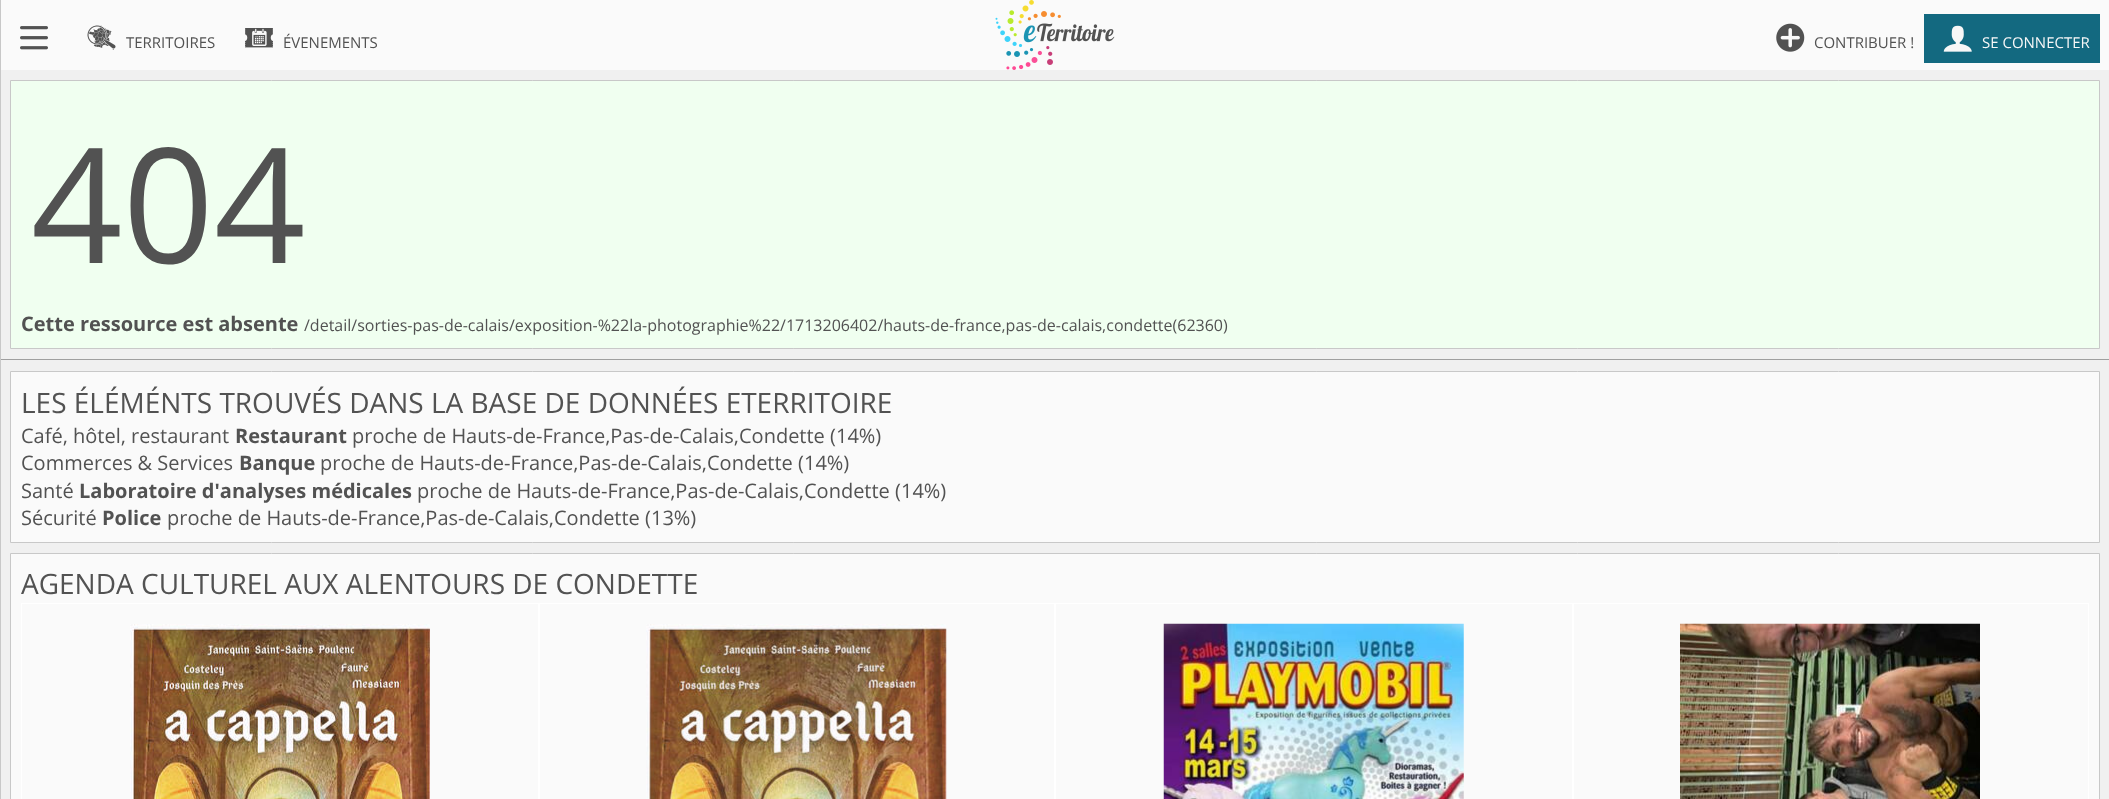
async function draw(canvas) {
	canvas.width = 2109;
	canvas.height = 799;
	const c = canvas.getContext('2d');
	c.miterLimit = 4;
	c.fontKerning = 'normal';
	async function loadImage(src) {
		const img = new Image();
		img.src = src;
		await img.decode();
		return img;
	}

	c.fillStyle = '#f0f0f0';
	c.fillRect(0, 0, 2109, 799);
	for (const [x, y, w, h, color] of [
		[0, 359, 2109, 1, '#9f9f9f'],
		[0, 0, 1, 799, '#c8c8c8'],
		[1, 0, 2108, 70, '#fafafa'],
	]) {
		c.fillStyle = color;
		c.fillRect(x, y, w, h);
	}
	c.drawImage(await loadImage('img1.png'), 20, 26, 28, 24);
	c.drawImage(await loadImage('img2.png'), 87, 25, 29, 25);
	c.font = '15px Open Sans';
	c.fillStyle = '#525252';
	c.fillText('TERRITOIRES', 126, 48);
	c.drawImage(await loadImage('img3.png'), 245, 28, 28, 20);
	c.fillText('ÉVENEMENTS', 283, 48);
	c.drawImage(await loadImage('img4.png'), 995, 0, 120, 70);
	c.drawImage(await loadImage('img5.png'), 1776, 23, 29, 29);
	c.fillText('CONTRIBUER !', 1814, 48);
	c.fillStyle = '#136980';
	c.fillRect(1924, 14, 176, 49);
	c.drawImage(await loadImage('img6.png'), 1943, 25, 29, 27);
	c.fillStyle = '#f7f7f7';
	c.fillText('SE CONNECTER', 1982, 48);
	c.fillStyle = '#f0fff0';
	c.beginPath();
	c.rect(10.5, 80.5, 2089, 268);
	c.fill();
	c.strokeStyle = '#c8c8c8';
	c.stroke();
	c.font = '160px Open Sans';
	c.fillStyle = '#525252';
	c.fillText('404', 31, 263);
	c.font = 'bold 20px Open Sans';
	c.fillText('Cette ressource est absente', 21, 331);
	c.font = '16px Open Sans';
	c.fillText('/detail/sorties-pas-de-calais/exposition-%22la-photographie%22/1713206402/hauts-de-france,pas-de-calais,condette(62360)', 304, 331);
	c.fillStyle = '#fafafa';
	c.beginPath();
	c.rect(10.5, 371.5, 2089, 171);
	c.fill();
	c.stroke();
	c.font = '28px Open Sans';
	c.fillStyle = '#525252';
	c.fillText('LES ÉLÉMÉNTS TROUVÉS DANS LA BASE DE DONNÉES ETERRITOIRE', 21, 413);
	c.font = '20px Open Sans';
	c.fillText('Café, hôtel, restaurant', 21, 443);
	c.font = 'bold 20px Open Sans';
	c.fillText('Restaurant', 235, 443);
	c.font = '20px Open Sans';
	c.fillText('proche de Hauts-de-France,Pas-de-Calais,Condette (14%)', 352, 443);
	c.fillText('Commerces & Services', 21, 470);
	c.font = 'bold 20px Open Sans';
	c.fillText('Banque', 239, 470);
	c.font = '20px Open Sans';
	c.fillText('proche de Hauts-de-France,Pas-de-Calais,Condette (14%)', 320, 470);
	c.fillText('Santé', 21, 498);
	c.font = 'bold 20px Open Sans';
	c.fillText('Laboratoire d\'analyses médicales', 79, 498);
	c.font = '20px Open Sans';
	c.fillText('proche de Hauts-de-France,Pas-de-Calais,Condette (14%)', 417, 498);
	c.fillText('Sécurité', 21, 525);
	c.font = 'bold 20px Open Sans';
	c.fillText('Police', 102, 525);
	c.font = '20px Open Sans';
	c.fillText('proche de Hauts-de-France,Pas-de-Calais,Condette (13%)', 167, 525);
	c.fillStyle = '#fafafa';
	c.beginPath();
	c.rect(10.5, 553.5, 2089, 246);
	c.fill();
	c.stroke();
	c.font = '28px Open Sans';
	c.fillStyle = '#525252';
	c.fillText('AGENDA CULTUREL AUX ALENTOURS DE CONDETTE', 21, 594);
	c.strokeStyle = '#fff';
	c.strokeRect(21.5, 603.5, 517, 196);
	c.drawImage(await loadImage('img7.png'), 130, 624, 300, 175);
	c.strokeRect(539.5, 603.5, 515, 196);
	c.drawImage(await loadImage('img8.png'), 646, 624, 301, 175);
	c.strokeRect(1055.5, 603.5, 517, 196);
	c.drawImage(await loadImage('img9.png'), 1163, 623, 301, 176);
	c.strokeRect(1573.5, 603.5, 515, 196);
	c.drawImage(await loadImage('img10.png'), 1680, 623, 300, 176);
}

draw(document.querySelector('canvas'));
